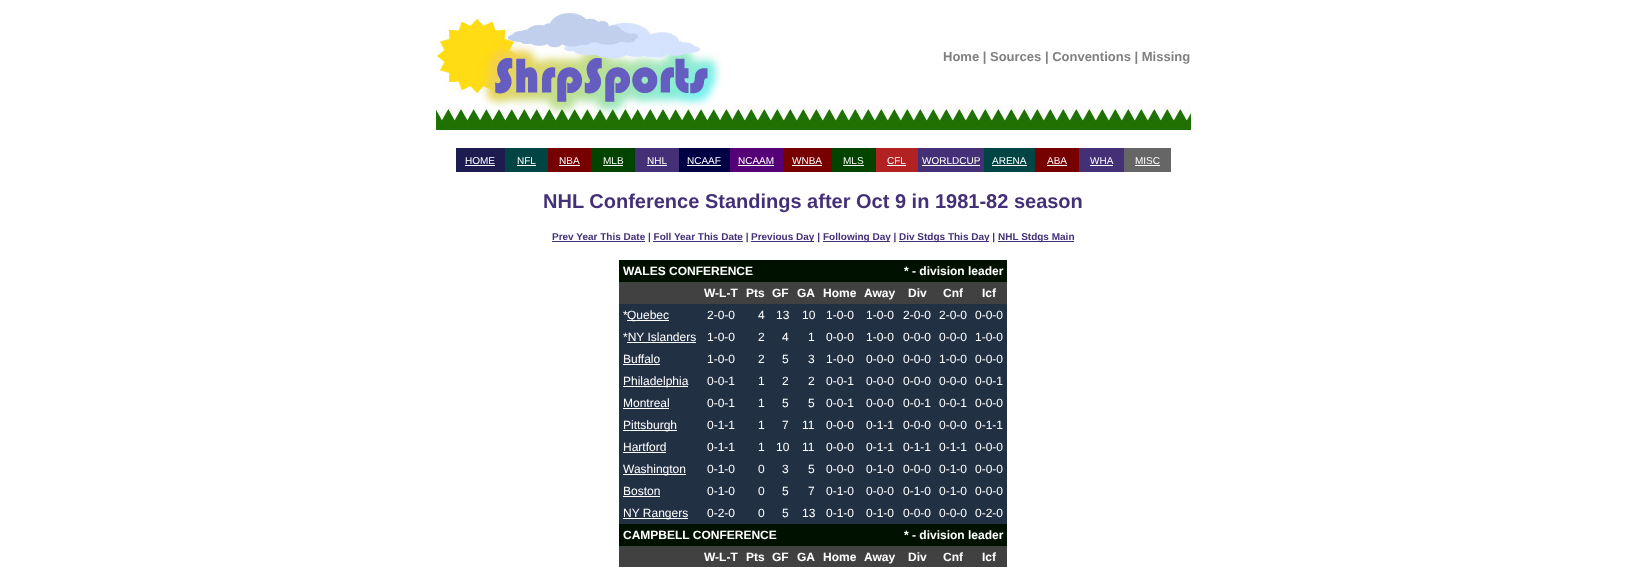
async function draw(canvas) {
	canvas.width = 1626;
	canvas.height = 567;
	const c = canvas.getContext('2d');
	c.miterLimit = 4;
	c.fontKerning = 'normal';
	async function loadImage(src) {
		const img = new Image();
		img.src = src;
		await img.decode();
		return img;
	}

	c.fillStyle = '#fff';
	c.fillRect(0, 0, 1626, 567);
	c.drawImage(await loadImage('img1.png'), 436, 8, 296, 122);
	c.font = 'bold 13px Liberation Sans';
	c.fillStyle = '#808080';
	c.fillText('Home | Sources | Conventions | Missing', 943, 61);
	c.drawImage(await loadImage('img2.png'), 732, 105, 459, 25);
	c.fillStyle = '#1c1c51';
	c.fillRect(456, 148, 49, 24);
	c.font = '10px Liberation Sans';
	c.fillStyle = '#fff';
	c.fillText('HOME', 465, 164);
	c.fillRect(465, 165, 30, 1);
	c.fillStyle = '#044';
	c.fillRect(505, 148, 43, 24);
	c.fillStyle = '#fff';
	c.fillText('NFL', 517, 164);
	c.fillRect(517, 165, 19, 1);
	c.fillStyle = '#700';
	c.fillRect(548, 148, 43, 24);
	c.fillStyle = '#fff';
	c.fillText('NBA', 559, 164);
	c.fillRect(559, 165, 21, 1);
	c.fillStyle = '#040';
	c.fillRect(591, 148, 44, 24);
	c.fillStyle = '#fff';
	c.fillText('MLB', 603, 164);
	c.fillRect(603, 165, 20, 1);
	c.fillStyle = '#443077';
	c.fillRect(635, 148, 44, 24);
	c.fillStyle = '#fff';
	c.fillText('NHL', 647, 164);
	c.fillRect(647, 165, 20, 1);
	c.fillStyle = '#004';
	c.fillRect(679, 148, 51, 24);
	c.fillStyle = '#fff';
	c.fillText('NCAAF', 687, 164);
	c.fillRect(687, 165, 34, 1);
	c.fillStyle = '#507';
	c.fillRect(730, 148, 53, 24);
	c.fillStyle = '#fff';
	c.fillText('NCAAM', 738, 164);
	c.fillRect(738, 165, 36, 1);
	c.fillStyle = '#700';
	c.fillRect(783, 148, 49, 24);
	c.fillStyle = '#fff';
	c.fillText('WNBA', 792, 164);
	c.fillRect(792, 165, 30, 1);
	c.fillStyle = '#040';
	c.fillRect(832, 148, 44, 24);
	c.fillStyle = '#fff';
	c.fillText('MLS', 843, 164);
	c.fillRect(843, 165, 21, 1);
	c.fillStyle = '#b22222';
	c.fillRect(876, 148, 42, 24);
	c.fillStyle = '#fff';
	c.fillText('CFL', 887, 164);
	c.fillRect(887, 165, 19, 1);
	c.fillStyle = '#443077';
	c.fillRect(918, 148, 66, 24);
	c.fillStyle = '#fff';
	c.fillText('WORLDCUP', 922, 164);
	c.fillRect(922, 165, 58, 1);
	c.fillStyle = '#044';
	c.fillRect(984, 148, 51, 24);
	c.fillStyle = '#fff';
	c.fillText('ARENA', 992, 164);
	c.fillRect(992, 165, 35, 1);
	c.fillStyle = '#700';
	c.fillRect(1035, 148, 44, 24);
	c.fillStyle = '#fff';
	c.fillText('ABA', 1047, 164);
	c.fillRect(1047, 165, 20, 1);
	c.fillStyle = '#443077';
	c.fillRect(1079, 148, 45, 24);
	c.fillStyle = '#fff';
	c.fillText('WHA', 1090, 164);
	c.fillRect(1090, 165, 23, 1);
	c.fillStyle = '#666';
	c.fillRect(1124, 148, 47, 24);
	c.fillStyle = '#fff';
	c.fillText('MISC', 1135, 164);
	c.fillRect(1135, 165, 25, 1);
	c.font = 'bold 20px Liberation Sans';
	c.fillStyle = '#443077';
	c.fillText('NHL Conference Standings after Oct 9 in 1981-82 season', 543, 208);
	c.fillRect(552, 241, 93, 1);
	c.font = 'bold 10px Liberation Sans';
	c.fillText('Prev Year This Date | Foll Year This Date |', 552, 240);
	c.fillRect(751, 241, 63, 1);
	c.fillText('Previous Day |', 751, 240);
	c.fillRect(823, 241, 67, 1);
	c.fillText('Following Day |', 823, 240);
	c.fillRect(899, 241, 90, 1);
	c.fillText('Div Stdgs This Day |', 899, 240);
	c.fillRect(998, 241, 76, 1);
	c.fillText('NHL Stdgs Main', 998, 240);
	c.fillRect(653, 241, 90, 1);
	c.fillStyle = '#010';
	c.fillRect(619, 260, 388, 22);
	c.font = 'bold 12px Liberation Sans';
	c.fillStyle = '#fff';
	c.fillText('WALES CONFERENCE', 623, 275);
	c.fillText('* - division leader', 904, 275);
	c.fillStyle = '#414141';
	c.fillRect(619, 282, 388, 22);
	c.fillStyle = '#fff';
	for (const [text, x, y] of [
		['W-L-T', 704, 297],
		['Pts', 746, 297],
		['GF', 772, 297],
		['GA', 797, 297],
		['Home', 823, 297],
		['Away', 864, 297],
		['Div', 908, 297],
		['Cnf', 943, 297],
		['Icf', 982, 297],
	]) {
		c.fillText(text, x, y);
	}
	c.fillStyle = '#223044';
	c.fillRect(619, 304, 388, 220);
	c.font = '12px Liberation Sans';
	c.fillStyle = '#fff';
	c.fillText('*', 623, 319);
	c.fillRect(627, 320, 42, 1);
	for (const [text, x, y] of [
		['Quebec', 627, 319],
		['2-0-0', 707, 319],
		['4', 758, 319],
		['13', 776, 319],
		['10', 802, 319],
		['1-0-0', 826, 319],
		['1-0-0', 866, 319],
		['2-0-0', 903, 319],
		['2-0-0', 939, 319],
		['0-0-0', 975, 319],
		['*NY Islanders', 623, 341],
	]) {
		c.fillText(text, x, y);
	}
	c.fillRect(627, 342, 69, 1);
	for (const [text, x, y] of [
		['1-0-0', 707, 341],
		['2', 758, 341],
		['4', 782, 341],
		['1', 808, 341],
		['0-0-0', 826, 341],
		['1-0-0', 866, 341],
		['0-0-0', 903, 341],
		['0-0-0', 939, 341],
		['1-0-0', 975, 341],
		['Buffalo', 623, 363],
	]) {
		c.fillText(text, x, y);
	}
	c.fillRect(623, 364, 37, 1);
	for (const [text, x, y] of [
		['1-0-0', 707, 363],
		['2', 758, 363],
		['5', 782, 363],
		['3', 808, 363],
		['1-0-0', 826, 363],
		['0-0-0', 866, 363],
		['0-0-0', 903, 363],
		['1-0-0', 939, 363],
		['0-0-0', 975, 363],
	]) {
		c.fillText(text, x, y);
	}
	c.fillRect(623, 386, 65, 1);
	for (const [text, x, y] of [
		['Philadelphia', 623, 385],
		['0-0-1', 707, 385],
		['1', 758, 385],
		['2', 782, 385],
		['2', 808, 385],
		['0-0-1', 826, 385],
		['0-0-0', 866, 385],
		['0-0-0', 903, 385],
		['0-0-0', 939, 385],
		['0-0-1', 975, 385],
		['Montreal', 623, 407],
	]) {
		c.fillText(text, x, y);
	}
	c.fillRect(623, 408, 46, 1);
	for (const [text, x, y] of [
		['0-0-1', 707, 407],
		['1', 758, 407],
		['5', 782, 407],
		['5', 808, 407],
		['0-0-1', 826, 407],
		['0-0-0', 866, 407],
		['0-0-1', 903, 407],
		['0-0-1', 939, 407],
		['0-0-0', 975, 407],
	]) {
		c.fillText(text, x, y);
	}
	c.fillRect(623, 430, 54, 1);
	for (const [text, x, y] of [
		['Pittsburgh', 623, 429],
		['0-1-1', 707, 429],
		['1', 758, 429],
		['7', 782, 429],
		['11', 802, 429],
		['0-0-0', 826, 429],
		['0-1-1', 866, 429],
		['0-0-0', 903, 429],
		['0-0-0', 939, 429],
		['0-1-1', 975, 429],
		['Hartford', 623, 451],
	]) {
		c.fillText(text, x, y);
	}
	c.fillRect(623, 452, 43, 1);
	for (const [text, x, y] of [
		['0-1-1', 707, 451],
		['1', 758, 451],
		['10', 776, 451],
		['11', 802, 451],
		['0-0-0', 826, 451],
		['0-1-1', 866, 451],
		['0-1-1', 903, 451],
		['0-1-1', 939, 451],
		['0-0-0', 975, 451],
	]) {
		c.fillText(text, x, y);
	}
	c.fillRect(623, 474, 63, 1);
	for (const [text, x, y] of [
		['Washington', 623, 473],
		['0-1-0', 707, 473],
		['0', 758, 473],
		['3', 782, 473],
		['5', 808, 473],
		['0-0-0', 826, 473],
		['0-1-0', 866, 473],
		['0-0-0', 903, 473],
		['0-1-0', 939, 473],
		['0-0-0', 975, 473],
		['Boston', 623, 495],
	]) {
		c.fillText(text, x, y);
	}
	c.fillRect(623, 496, 37, 1);
	for (const [text, x, y] of [
		['0-1-0', 707, 495],
		['0', 758, 495],
		['5', 782, 495],
		['7', 808, 495],
		['0-1-0', 826, 495],
		['0-0-0', 866, 495],
		['0-1-0', 903, 495],
		['0-1-0', 939, 495],
		['0-0-0', 975, 495],
	]) {
		c.fillText(text, x, y);
	}
	c.fillRect(623, 518, 65, 1);
	for (const [text, x, y] of [
		['NY Rangers', 623, 517],
		['0-2-0', 707, 517],
		['0', 758, 517],
		['5', 782, 517],
		['13', 802, 517],
		['0-1-0', 826, 517],
		['0-1-0', 866, 517],
		['0-0-0', 903, 517],
		['0-0-0', 939, 517],
		['0-2-0', 975, 517],
	]) {
		c.fillText(text, x, y);
	}
	c.fillStyle = '#010';
	c.fillRect(619, 524, 388, 22);
	c.font = 'bold 12px Liberation Sans';
	c.fillStyle = '#fff';
	c.fillText('CAMPBELL CONFERENCE', 623, 539);
	c.fillText('* - division leader', 904, 539);
	c.fillStyle = '#414141';
	c.fillRect(619, 546, 388, 21);
	c.fillStyle = '#fff';
	for (const [text, x, y] of [
		['W-L-T', 704, 561],
		['Pts', 746, 561],
		['GF', 772, 561],
		['GA', 797, 561],
		['Home', 823, 561],
		['Away', 864, 561],
		['Div', 908, 561],
		['Cnf', 943, 561],
		['Icf', 982, 561],
	]) {
		c.fillText(text, x, y);
	}
}

draw(document.querySelector('canvas'));
